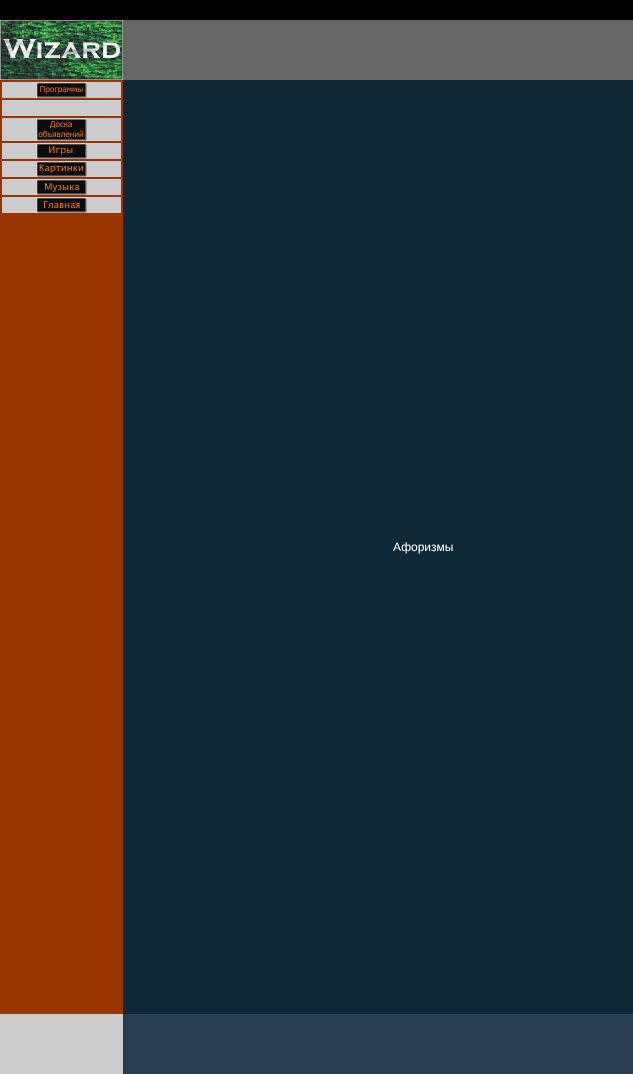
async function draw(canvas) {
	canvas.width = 633;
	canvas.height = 1074;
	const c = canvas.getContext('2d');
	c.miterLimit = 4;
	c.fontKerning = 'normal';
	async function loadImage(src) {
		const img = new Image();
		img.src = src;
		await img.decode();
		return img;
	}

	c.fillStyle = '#000';
	c.fillRect(0, 0, 633, 1074);
	c.drawImage(await loadImage('img1.png'), 0, 20, 123, 60);
	for (const [x, y, w, h, color] of [
		[123, 20, 510, 60, '#666'],
		[0, 215, 123, 799, '#930'],
		[2, 82, 119, 131, '#ccc'],
	]) {
		c.fillStyle = color;
		c.fillRect(x, y, w, h);
	}
	c.strokeStyle = '#930';
	c.strokeRect(0.5, 80.5, 122, 134);
	c.strokeRect(1.5, 81.5, 120, 17);
	c.drawImage(await loadImage('img2.png'), 36, 82, 51, 16);
	c.strokeRect(1.5, 99.5, 120, 17);
	c.strokeRect(1.5, 117.5, 120, 24);
	c.drawImage(await loadImage('img3.png'), 36, 118, 51, 23);
	c.strokeRect(1.5, 142.5, 120, 17);
	c.drawImage(await loadImage('img4.png'), 36, 143, 51, 16);
	c.strokeRect(1.5, 160.5, 120, 17);
	c.drawImage(await loadImage('img5.png'), 36, 161, 51, 16);
	c.strokeRect(1.5, 178.5, 120, 17);
	c.drawImage(await loadImage('img6.png'), 36, 179, 51, 16);
	c.strokeRect(1.5, 196.5, 120, 17);
	c.drawImage(await loadImage('img7.png'), 36, 197, 51, 16);
	c.fillStyle = '#0e2838';
	c.fillRect(123, 80, 510, 934);
	c.font = '12px Liberation Sans';
	c.fillStyle = '#fff';
	c.fillText('Афоризмы', 393, 551);
	c.fillStyle = '#ccc';
	c.fillRect(0, 1014, 123, 60);
	c.fillStyle = '#273e52';
	c.fillRect(123, 1014, 510, 60);
}

draw(document.querySelector('canvas'));
